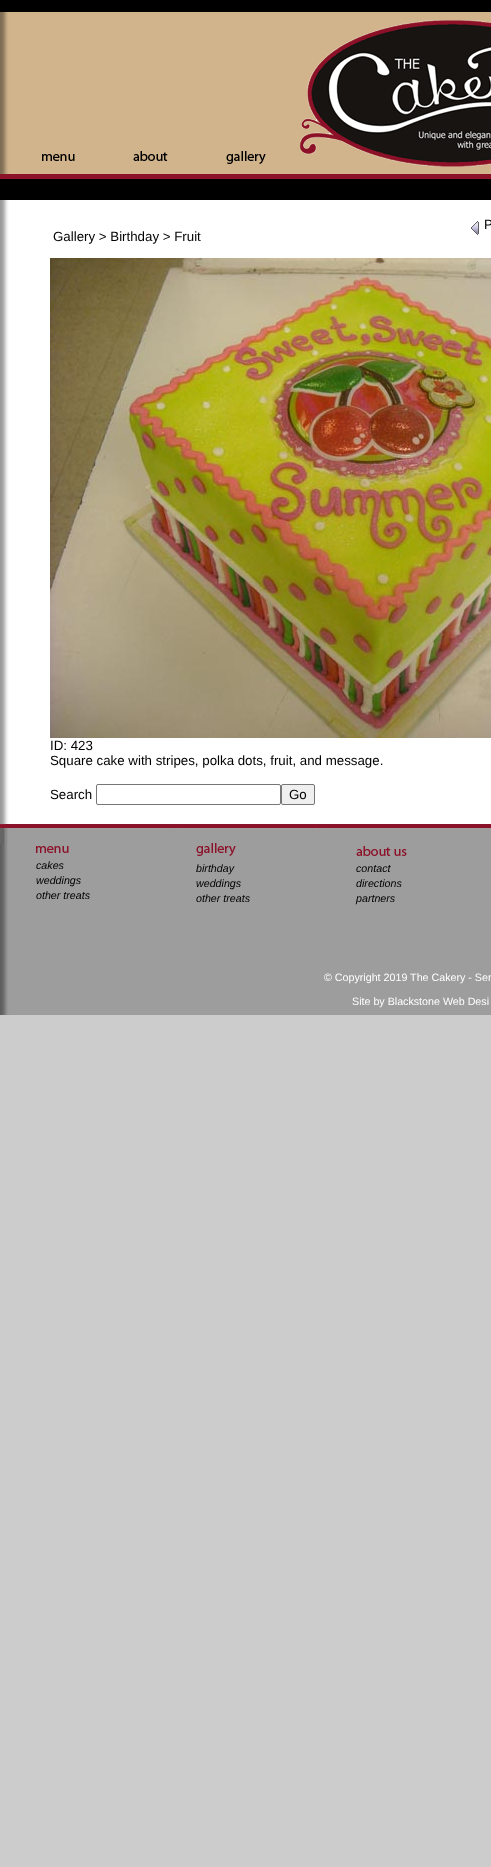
async function draw(canvas) {
	canvas.width = 491;
	canvas.height = 1867;
	const c = canvas.getContext('2d');
	c.miterLimit = 4;
	c.fontKerning = 'normal';
	async function loadImage(src) {
		const img = new Image();
		img.src = src;
		await img.decode();
		return img;
	}

	c.fillStyle = '#ccc';
	c.fillRect(0, 0, 491, 1867);
	c.drawImage(await loadImage('img1.png'), 0, 200, 491, 605);
	c.drawImage(await loadImage('img2.png'), 0, 12, 491, 167);
	c.fillStyle = '#000';
	c.fillRect(0, 0, 491, 12);
	c.fillRect(0, 179, 491, 21);
	c.drawImage(await loadImage('img3.png'), 42, 154, 33, 7);
	c.drawImage(await loadImage('img4.png'), 133, 151, 35, 10);
	c.drawImage(await loadImage('img5.png'), 226, 151, 40, 13);
	c.drawImage(await loadImage('img6.png'), 300, 20, 191, 147);
	c.drawImage(await loadImage('img7.png'), 471, 221, 8, 14);
	c.font = '13.3px Liberation Sans';
	c.fillText('P', 484, 229);
	c.fillText('Gallery > Birthday > Fruit', 53, 241);
	c.drawImage(await loadImage('img8.png'), 50, 258, 441, 480);
	for (const [text, x, y] of [
		['ID: 423', 50, 750],
		['Square cake with stripes, polka dots, fruit, and message.', 50, 765],
		['Search', 50, 799],
	]) {
		c.fillText(text, x, y);
	}
	c.beginPath();
	c.roundRect(96.5, 784.5, 184, 20, 1.5);
	c.strokeStyle = '#767676';
	c.stroke();
	c.fillStyle = '#efefef';
	c.beginPath();
	c.roundRect(281.5, 784.5, 33, 20, 1.5);
	c.fill();
	c.stroke();
	c.fillStyle = '#000';
	c.fillText('Go', 289, 799);
	c.drawImage(await loadImage('img9.png'), 0, 844, 491, 171);
	c.drawImage(await loadImage('img10.png'), 0, 805, 491, 39);
	c.drawImage(await loadImage('img11.png'), 36, 846, 33, 7);
	c.font = 'italic 10.7px Liberation Sans';
	for (const [text, x, y] of [
		['cakes', 36, 869],
		['weddings', 36, 884],
		['other treats', 36, 899],
	]) {
		c.fillText(text, x, y);
	}
	c.drawImage(await loadImage('img12.png'), 196, 843, 40, 13);
	for (const [text, x, y] of [
		['birthday', 196, 872],
		['weddings', 196, 887],
		['other treats', 196, 902],
	]) {
		c.fillText(text, x, y);
	}
	c.drawImage(await loadImage('img13.png'), 356, 846, 51, 10);
	for (const [text, x, y] of [
		['contact', 356, 872],
		['directions', 356, 887],
		['partners', 356, 902],
	]) {
		c.fillText(text, x, y);
	}
	c.font = '10.7px Liberation Sans';
	c.fillStyle = '#fff';
	c.fillText('© Copyright 2019 The Cakery - Ser', 324, 981);
	c.fillText('Site by Blackstone Web Desi', 352, 1005);
}

draw(document.querySelector('canvas'));
